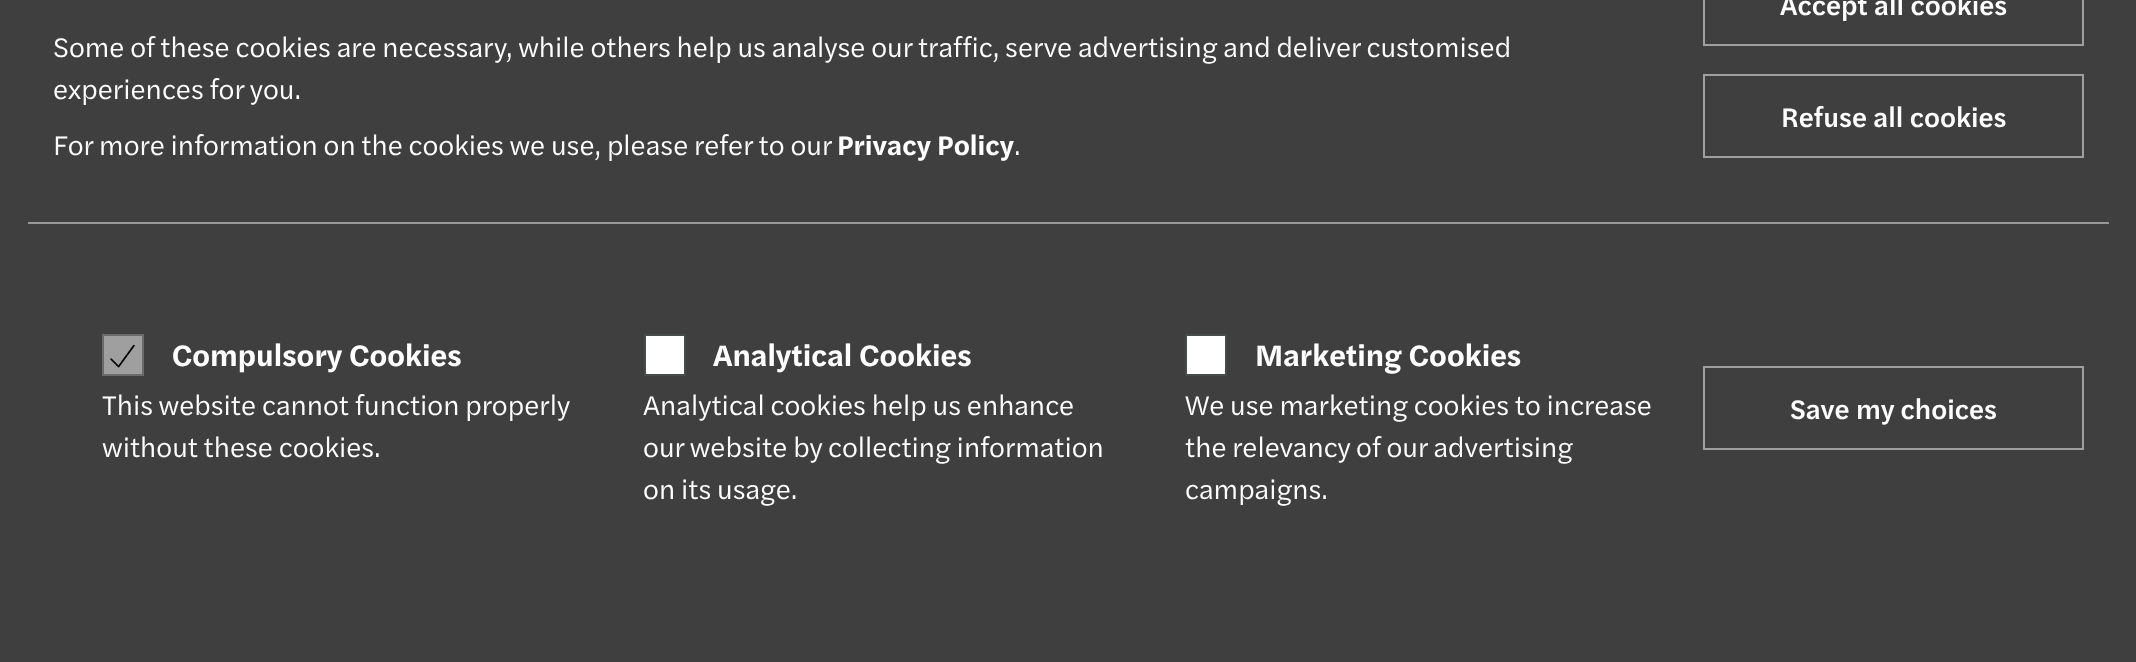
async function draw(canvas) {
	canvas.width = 2136;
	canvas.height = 662;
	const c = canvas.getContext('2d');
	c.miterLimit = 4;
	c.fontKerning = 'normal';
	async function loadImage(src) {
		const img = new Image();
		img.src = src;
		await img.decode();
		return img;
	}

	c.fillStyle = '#3f3f3f';
	c.fillRect(0, 0, 2136, 662);
	c.font = '28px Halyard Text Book';
	c.fillStyle = '#fff';
	for (const [text, x, y] of [
		['Some of these cookies are necessary, while others help us analyse our traffic, serve advertising and deliver customised', 53, 57],
		['experiences for you.', 53, 99],
		['For more information on the cookies we use, please refer to our', 53, 155],
	]) {
		c.fillText(text, x, y);
	}
	c.font = '600 28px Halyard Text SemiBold';
	c.fillText('Privacy Policy', 837, 155);
	c.font = '28px Halyard Text Book';
	c.fillText('.', 1014, 155);
	c.strokeStyle = '#9f9f9f';
	c.lineWidth = 2;
	c.strokeRect(1704, -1, 379, 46);
	c.font = '500 28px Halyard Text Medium';
	c.fillText('Accept all cookies', 1780, 15);
	c.strokeRect(1704, 75, 379, 82);
	c.fillText('Refuse all cookies', 1781, 127);
	c.fillStyle = '#979797';
	c.fillRect(28, 222, 2081, 2);
	c.fillStyle = '#9f9f9f';
	c.beginPath();
	c.rect(103, 335, 40, 40);
	c.fill();
	c.strokeStyle = '#6b6b6b';
	c.stroke();
	c.font = '600 30.75px Halyard Text SemiBold';
	c.fillStyle = '#fff';
	c.fillText('Compulsory Cookies', 172, 366);
	c.drawImage(await loadImage('img1.png'), 110, 344, 25, 24);
	c.font = '28px Halyard Text Book';
	c.fillText('This website cannot function properly', 102, 415);
	c.fillText('without these cookies.', 102, 457);
	c.beginPath();
	c.rect(645, 335, 40, 40);
	c.fill();
	c.strokeStyle = '#464b4b';
	c.stroke();
	c.font = '600 30.75px Halyard Text SemiBold';
	c.fillText('Analytical Cookies', 713, 366);
	c.font = '28px Halyard Text Book';
	for (const [text, x, y] of [
		['Analytical cookies help us enhance', 643, 415],
		['our website by collecting information', 643, 457],
		['on its usage.', 643, 499],
	]) {
		c.fillText(text, x, y);
	}
	c.beginPath();
	c.rect(1186, 335, 40, 40);
	c.fill();
	c.stroke();
	c.font = '600 30.75px Halyard Text SemiBold';
	c.fillText('Marketing Cookies', 1255, 366);
	c.font = '28px Halyard Text Book';
	for (const [text, x, y] of [
		['We use marketing cookies to increase', 1185, 415],
		['the relevancy of our advertising', 1185, 457],
		['campaigns.', 1185, 499],
	]) {
		c.fillText(text, x, y);
	}
	c.strokeStyle = '#9f9f9f';
	c.strokeRect(1704, 367, 379, 82);
	c.font = '500 28px Halyard Text Medium';
	c.fillText('Save my choices', 1790, 419);
}

draw(document.querySelector('canvas'));
